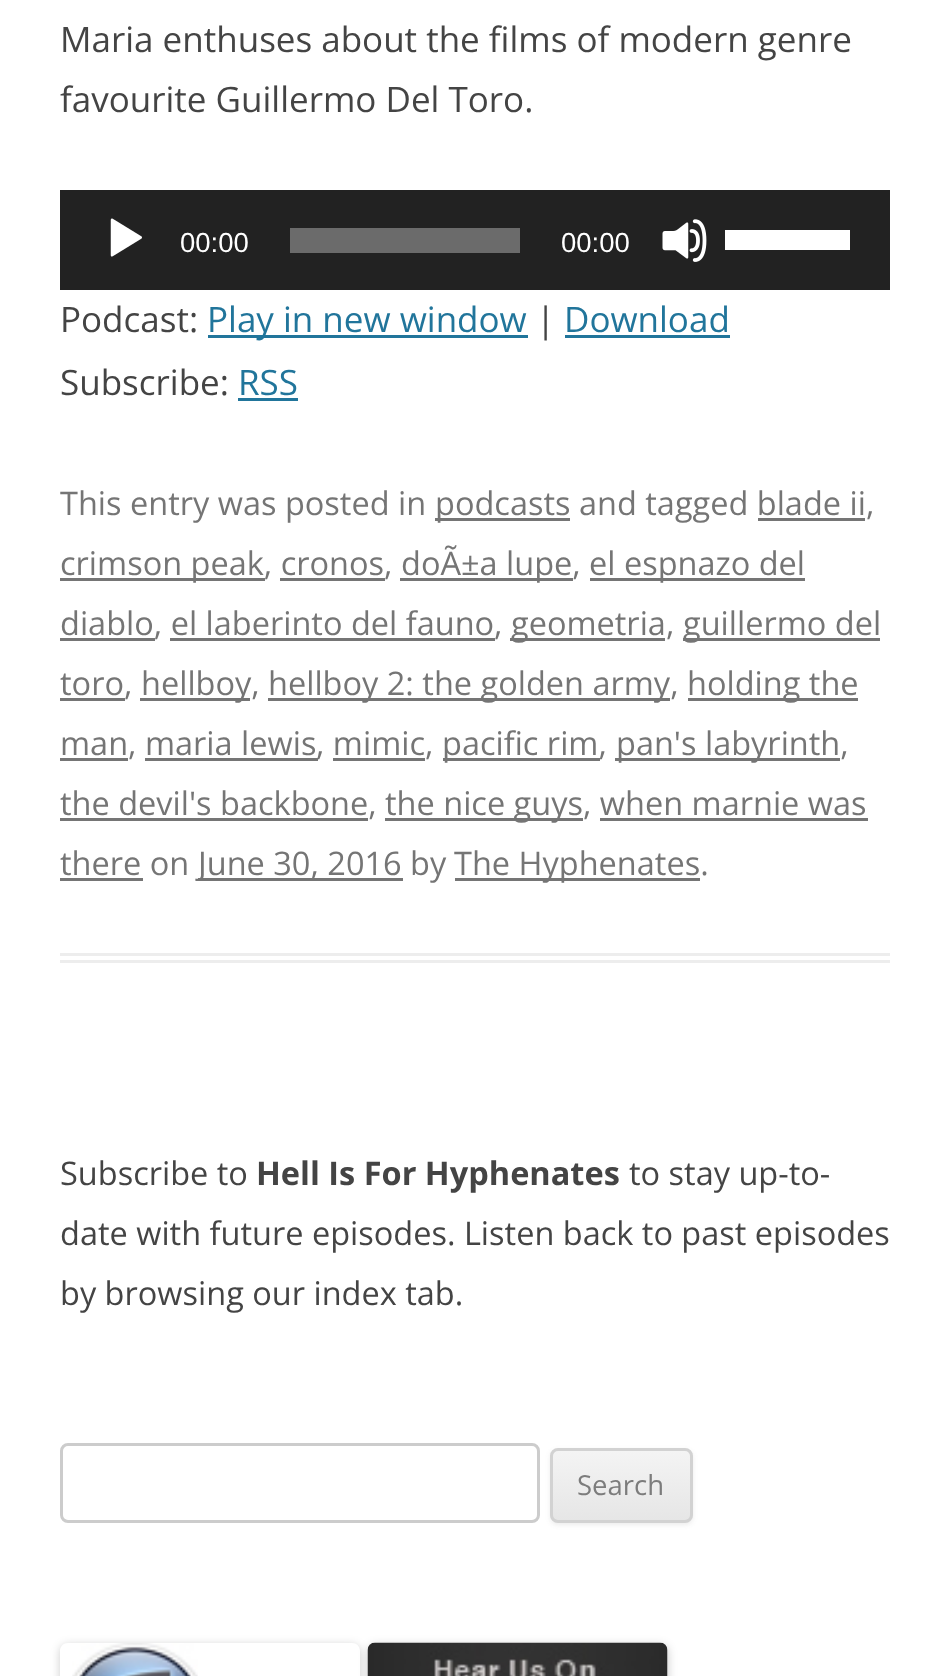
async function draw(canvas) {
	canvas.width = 950;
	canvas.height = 1676;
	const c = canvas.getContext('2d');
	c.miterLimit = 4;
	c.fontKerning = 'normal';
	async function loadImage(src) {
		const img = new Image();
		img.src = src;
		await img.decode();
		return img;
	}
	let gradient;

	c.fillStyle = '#fff';
	c.fillRect(0, 0, 950, 1676);
	c.fillStyle = '#ededed';
	c.fillRect(60, 953, 830, 3);
	c.fillRect(60, 960, 830, 3);
	c.font = '35px Open Sans';
	c.fillStyle = '#444';
	c.fillText('Maria enthuses about the films of modern genre', 60, 52);
	c.fillText('favourite Guillermo Del Toro.', 60, 112);
	c.fillStyle = '#222';
	c.fillRect(60, 190, 830, 100);
	c.drawImage(await loadImage('img1.png'), 110, 218, 32, 39);
	c.font = '27.5px Liberation Sans';
	c.fillStyle = '#fff';
	c.fillText('00:00', 180, 252);
	c.fillStyle = '#6b6b6b';
	c.fillRect(290, 228, 230, 25);
	c.fillStyle = '#fff';
	c.fillText('00:00', 561, 252);
	c.drawImage(await loadImage('img2.png'), 662, 219, 45, 43);
	c.fillRect(725, 230, 125, 20);
	c.font = '35px Open Sans';
	c.fillStyle = '#444';
	c.fillText('Podcast:', 60, 332);
	c.fillStyle = '#21759b';
	c.fillRect(208, 335, 320, 3);
	c.fillText('Play in new window', 207, 332);
	c.fillStyle = '#444';
	c.fillText('|', 536, 332);
	c.fillStyle = '#21759b';
	c.fillText('Download', 564, 332);
	c.fillRect(565, 335, 165, 3);
	c.fillStyle = '#444';
	c.fillText('Subscribe:', 60, 395);
	c.fillStyle = '#21759b';
	c.fillText('RSS', 238, 395);
	c.fillRect(238, 398, 60, 3);
	c.font = '32.5px Open Sans';
	c.fillStyle = '#757575';
	c.fillText('This entry was posted in', 60, 515);
	c.fillRect(435, 518, 135, 3);
	c.fillText('podcasts and tagged blade ii,', 435, 515);
	c.fillRect(758, 518, 107, 3);
	c.fillRect(60, 578, 205, 3);
	c.fillText('crimson peak, cronos,', 60, 575);
	c.fillRect(400, 578, 173, 3);
	c.fillText('doÃ±a lupe,', 401, 575);
	c.fillRect(590, 578, 215, 3);
	c.fillText('el espnazo del', 589, 575);
	c.fillRect(280, 578, 105, 3);
	c.fillRect(60, 638, 95, 3);
	c.fillText('diablo, el laberinto del fauno,', 60, 635);
	c.fillRect(510, 638, 155, 3);
	c.fillText('geometria,', 511, 635);
	c.fillRect(683, 638, 197, 3);
	c.fillText('guillermo del', 683, 635);
	c.fillRect(170, 638, 325, 3);
	c.fillRect(60, 698, 65, 3);
	c.fillText('toro,', 60, 695);
	c.fillRect(140, 698, 110, 3);
	c.fillText('hellboy,', 141, 695);
	c.fillRect(268, 698, 402, 3);
	c.fillText('hellboy 2: the golden army,', 268, 695);
	c.fillRect(688, 698, 170, 3);
	c.fillText('holding the', 687, 695);
	c.fillRect(60, 758, 68, 3);
	c.fillText('man, maria lewis', 60, 755);
	c.fillRect(145, 758, 173, 3);
	c.fillText(', mimic,', 316, 755);
	c.fillRect(443, 758, 157, 3);
	c.fillText('pacific rim,', 442, 755);
	c.fillRect(615, 758, 225, 3);
	c.fillText('pan\'s labyrinth,', 616, 755);
	c.fillRect(333, 758, 92, 3);
	c.fillRect(60, 818, 308, 3);
	c.fillText('the devil\'s backbone,', 60, 815);
	c.fillRect(385, 818, 198, 3);
	c.fillText('the nice guys, when marnie was', 385, 815);
	c.fillText('there on', 60, 875);
	for (const [x, y, w, h, color] of [
		[600, 818, 268, 3, '#757575'],
		[60, 878, 83, 3, '#757575'],
		[198, 878, 205, 3, '#757575'],
	]) {
		c.fillStyle = color;
		c.fillRect(x, y, w, h);
	}
	c.fillText('June 30, 2016 by', 198, 875);
	c.fillRect(455, 878, 245, 3);
	c.fillText('The Hyphenates.', 454, 875);
	c.fillStyle = '#444';
	c.fillText('Subscribe to', 60, 1185);
	c.font = 'bold 32.5px Open Sans';
	c.fillText('Hell Is For Hyphenates', 256, 1185);
	c.font = '32.5px Open Sans';
	for (const [text, x, y] of [
		['to stay up-to-', 629, 1185],
		['date with future episodes. Listen back to past episodes', 60, 1245],
		['by browsing our index tab.', 60, 1305],
	]) {
		c.fillText(text, x, y);
	}
	c.beginPath();
	c.roundRect(61.5, 1444.5, 477, 77, 6.5);
	c.strokeStyle = '#ccc';
	c.lineWidth = 3;
	c.stroke();
	c.fillStyle = '#4040401a';
	c.filter = 'blur(2.5px)';
	c.beginPath();
	c.roundRect(550, 1450, 143, 75, 8);
	c.fill();
	c.filter = 'none';
	c.save();
	c.beginPath();
	c.roundRect(550, 1448, 143, 75, 8);
	c.clip();
	gradient = c.createLinearGradient(621, 1450, 621, 1520);
	gradient.addColorStop(0, '#f4f4f4');
	gradient.addColorStop(1, '#e6e6e6');
	c.fillStyle = gradient;
	c.fillRect(550, 1450, 143, 70);
	c.restore();
	c.beginPath();
	c.roundRect(551.5, 1449.5, 140, 72, 6.5);
	c.strokeStyle = '#d2d2d2';
	c.stroke();
	c.font = '27.5px Open Sans';
	c.fillStyle = '#7c7c7c';
	c.fillText('Search', 577, 1495);
	c.save();
	c.beginPath();
	c.moveTo(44, 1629);
	c.lineTo(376, 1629);
	c.lineTo(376, 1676);
	c.lineTo(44, 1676);
	c.closePath();
	c.moveTo(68, 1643);
	c.lineTo(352, 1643);
	c.bezierCurveTo(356.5, 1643, 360, 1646.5, 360, 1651);
	c.lineTo(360, 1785);
	c.bezierCurveTo(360, 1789.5, 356.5, 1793, 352, 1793);
	c.lineTo(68, 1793);
	c.bezierCurveTo(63.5, 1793, 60, 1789.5, 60, 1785);
	c.lineTo(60, 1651);
	c.bezierCurveTo(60, 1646.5, 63.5, 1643, 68, 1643);
	c.closePath();
	c.clip('evenodd');
	c.fillStyle = '#00000033';
	c.filter = 'blur(5px)';
	c.beginPath();
	c.roundRect(60, 1645, 300, 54, 8);
	c.fill();
	c.filter = 'none';
	c.restore();
	c.fillStyle = '#00000033';
	c.filter = 'blur(5px)';
	c.beginPath();
	c.roundRect(368, 1645, 300, 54, 8);
	c.fill();
	c.filter = 'none';
	c.drawImage(await loadImage('img3.png'), 72, 1643, 126, 33);
	c.drawImage(await loadImage('img4.png'), 367, 1642, 301, 34);
}

draw(document.querySelector('canvas'));
